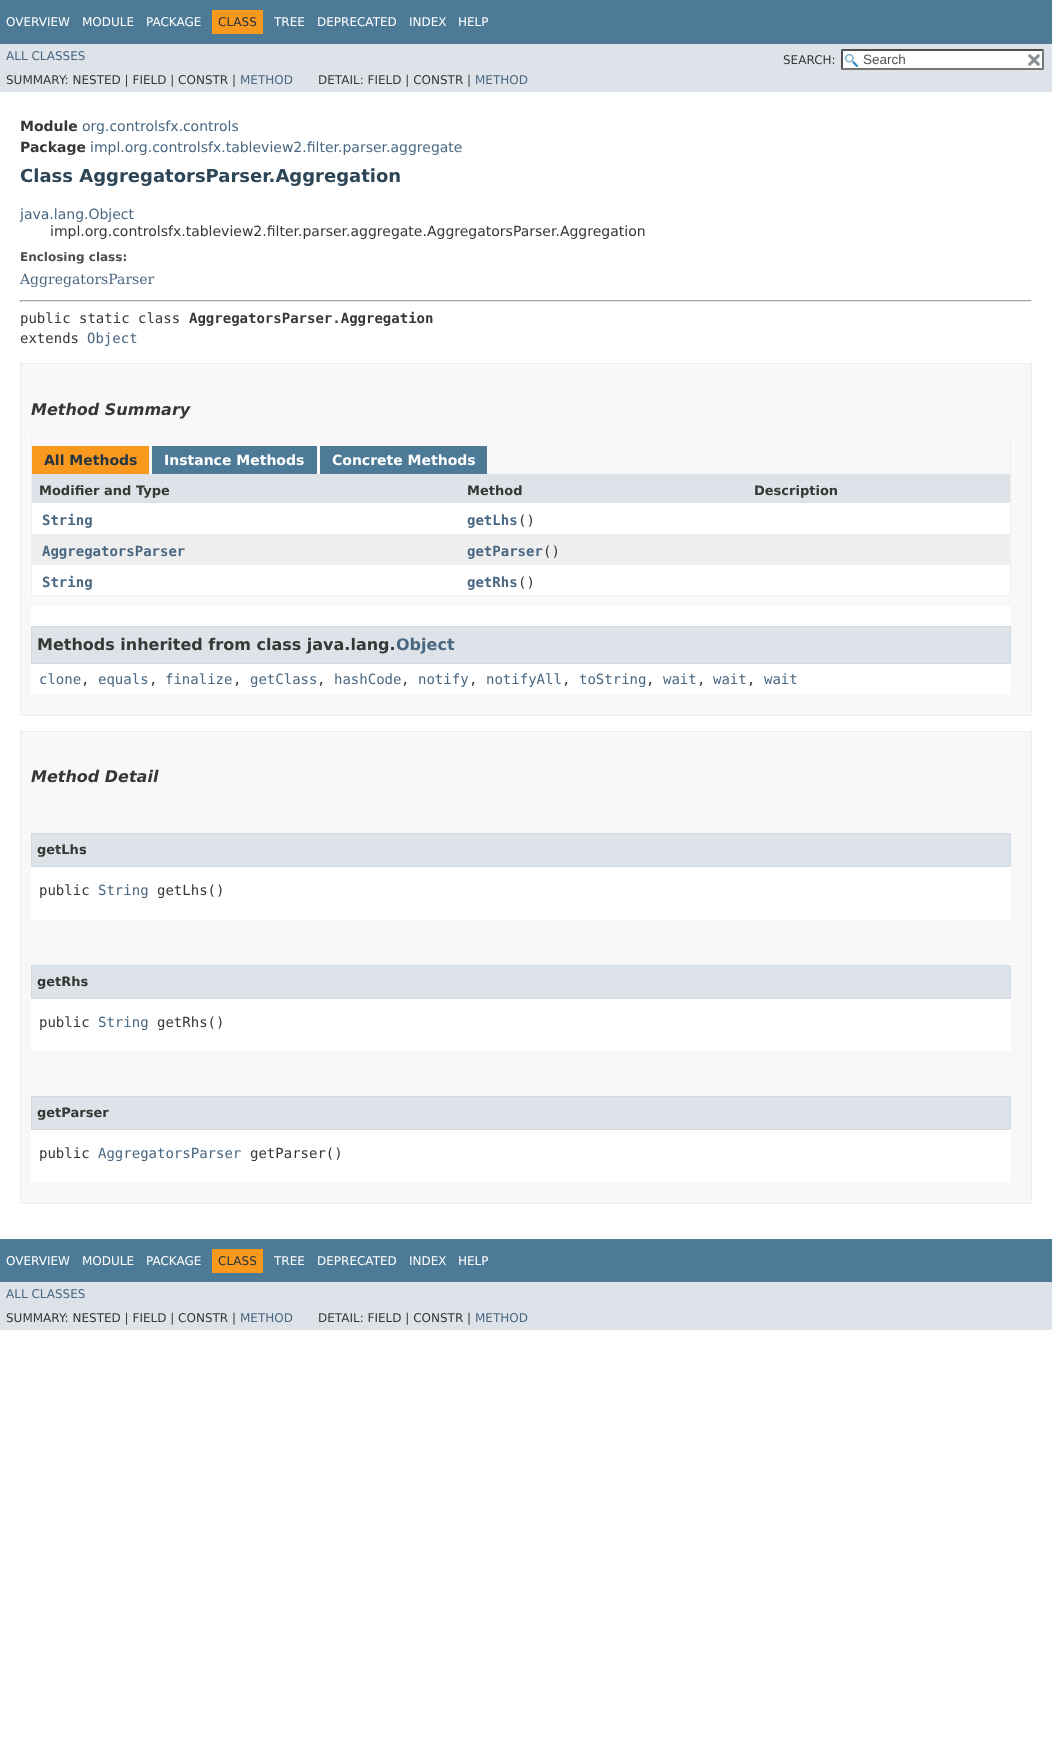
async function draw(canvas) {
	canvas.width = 1052;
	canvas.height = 1740;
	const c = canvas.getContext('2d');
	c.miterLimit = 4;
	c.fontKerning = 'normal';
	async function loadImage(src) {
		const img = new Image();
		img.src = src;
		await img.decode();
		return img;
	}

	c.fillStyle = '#fff';
	c.fillRect(0, 0, 1052, 1740);
	c.fillStyle = '#4d7a97';
	c.fillRect(0, 0, 1052, 44);
	c.font = '12px DejaVu Sans';
	c.fillStyle = '#fff';
	for (const [text, x, y] of [
		['OVERVIEW', 6, 26],
		['MODULE', 82, 26],
		['PACKAGE', 146, 26],
	]) {
		c.fillText(text, x, y);
	}
	c.fillStyle = '#f8981d';
	c.fillRect(212, 10, 51, 24);
	c.fillStyle = '#253441';
	c.fillText('CLASS', 218, 26);
	c.fillStyle = '#fff';
	for (const [text, x, y] of [
		['TREE', 274, 26],
		['DEPRECATED', 317, 26],
		['INDEX', 409, 26],
		['HELP', 458, 26],
	]) {
		c.fillText(text, x, y);
	}
	c.fillStyle = '#dee3e9';
	c.fillRect(0, 44, 1052, 48);
	c.fillStyle = '#4a6782';
	c.fillText('ALL CLASSES', 6, 60);
	c.fillStyle = '#353833';
	c.fillText('SEARCH:', 783, 64);
	c.fillStyle = '#fff';
	c.fillRect(841, 49, 203, 21);
	c.drawImage(await loadImage('img1.png'), 845, 54, 13, 13);
	c.fillStyle = '#4f4f4f';
	c.beginPath();
	c.moveTo(841, 49);
	c.lineTo(1044, 49);
	c.lineTo(1042, 51);
	c.lineTo(843, 51);
	c.closePath();
	c.fill();
	c.fillStyle = '#767676';
	c.beginPath();
	c.moveTo(1044, 49);
	c.lineTo(1044, 70);
	c.lineTo(1042, 68);
	c.lineTo(1042, 51);
	c.closePath();
	c.fill();
	c.beginPath();
	c.moveTo(1044, 70);
	c.lineTo(841, 70);
	c.lineTo(843, 68);
	c.lineTo(1042, 68);
	c.closePath();
	c.fill();
	c.fillStyle = '#4f4f4f';
	c.beginPath();
	c.moveTo(841, 70);
	c.lineTo(841, 49);
	c.lineTo(843, 51);
	c.lineTo(843, 68);
	c.closePath();
	c.fill();
	c.font = '13.5px Liberation Sans';
	c.fillStyle = '#545454';
	c.fillText('Search', 863, 64);
	c.drawImage(await loadImage('img2.png'), 1027, 54, 14, 12);
	c.font = '12px DejaVu Sans';
	c.fillStyle = '#353833';
	c.fillText('SUMMARY: NESTED | FIELD | CONSTR |', 6, 84);
	c.fillStyle = '#4a6782';
	c.fillText('METHOD', 240, 84);
	c.fillStyle = '#353833';
	c.fillText('DETAIL: FIELD | CONSTR |', 318, 84);
	c.fillStyle = '#4a6782';
	c.fillText('METHOD', 475, 84);
	c.font = 'bold 14px DejaVu Sans';
	c.fillStyle = '#353833';
	c.fillText('Module', 20, 131);
	c.font = '14px DejaVu Sans';
	c.fillStyle = '#4a6782';
	c.fillText('org.controlsfx.controls', 82, 131);
	c.font = 'bold 14px DejaVu Sans';
	c.fillStyle = '#353833';
	c.fillText('Package', 20, 152);
	c.font = '14px DejaVu Sans';
	c.fillStyle = '#4a6782';
	c.fillText('impl.org.controlsfx.tableview2.filter.parser.aggregate', 90, 152);
	c.font = 'bold 18px DejaVu Sans';
	c.fillStyle = '#2c4557';
	c.fillText('Class AggregatorsParser.Aggregation', 20, 182);
	c.font = '14px DejaVu Sans';
	c.fillStyle = '#4a6782';
	c.fillText('java.lang.Object', 20, 219);
	c.fillStyle = '#353833';
	c.fillText('impl.org.controlsfx.tableview2.filter.parser.aggregate.AggregatorsParser.Aggregation', 50, 236);
	c.font = 'bold 12px DejaVu Sans';
	c.fillStyle = '#4e4e4e';
	c.fillText('Enclosing class:', 20, 261);
	c.font = '14px DejaVu Serif';
	c.fillStyle = '#4a6782';
	c.fillText('AggregatorsParser', 20, 284);
	for (const [x, y, w, h, color] of [
		[20, 300, 1012, 1, '#9f9f9f'],
		[1031, 300, 1, 2, '#eee'],
		[20, 301, 1012, 1, '#eee'],
		[20, 300, 1, 2, '#9f9f9f'],
	]) {
		c.fillStyle = color;
		c.fillRect(x, y, w, h);
	}
	c.font = '14px DejaVu Sans Mono';
	c.fillStyle = '#353833';
	c.fillText('public static class', 20, 323);
	c.font = 'bold 14px DejaVu Sans Mono';
	c.fillText('AggregatorsParser.Aggregation', 189, 323);
	c.font = '14px DejaVu Sans Mono';
	c.fillText('extends', 20, 343);
	c.fillStyle = '#4a6782';
	c.fillText('Object', 87, 343);
	c.fillStyle = '#f8f8f8';
	c.beginPath();
	c.rect(20.5, 363.5, 1011, 352);
	c.fill();
	c.strokeStyle = '#ededed';
	c.stroke();
	c.font = 'italic bold 16px DejaVu Sans';
	c.fillStyle = '#353833';
	c.fillText('Method Summary', 31, 415);
	for (const [x, y, w, h, color] of [
		[1010, 436, 1, 160, '#eee'],
		[31, 595, 980, 1, '#eee'],
		[31, 436, 1, 160, '#eee'],
		[32, 446, 117, 28, '#f8981d'],
	]) {
		c.fillStyle = color;
		c.fillRect(x, y, w, h);
	}
	c.font = 'bold 14px DejaVu Sans';
	c.fillStyle = '#253441';
	c.fillText('All Methods', 44, 465);
	c.fillStyle = '#4d7a97';
	c.fillRect(152, 446, 165, 28);
	c.fillStyle = '#fff';
	c.fillText('Instance Methods', 164, 465);
	c.fillStyle = '#4d7a97';
	c.fillRect(320, 446, 167, 28);
	c.fillStyle = '#fff';
	c.fillText('Concrete Methods', 332, 465);
	c.fillStyle = '#dee3e9';
	c.fillRect(32, 474, 978, 29);
	c.font = 'bold 13px DejaVu Sans';
	c.fillStyle = '#353833';
	for (const [text, x, y] of [
		['Modifier and Type', 39, 495],
		['Method', 467, 495],
		['Description', 754, 495],
	]) {
		c.fillText(text, x, y);
	}
	c.fillStyle = '#fff';
	c.fillRect(32, 503, 978, 31);
	c.font = 'bold 14px DejaVu Sans Mono';
	c.fillStyle = '#4a6782';
	c.fillText('String', 42, 525);
	c.fillText('getLhs', 467, 525);
	c.font = '14px DejaVu Sans Mono';
	c.fillStyle = '#353833';
	c.fillText('()', 518, 525);
	c.fillStyle = '#eeeeef';
	c.fillRect(32, 534, 978, 31);
	c.font = 'bold 14px DejaVu Sans Mono';
	c.fillStyle = '#4a6782';
	c.fillText('AggregatorsParser', 42, 556);
	c.fillText('getParser', 467, 556);
	c.font = '14px DejaVu Sans Mono';
	c.fillStyle = '#353833';
	c.fillText('()', 543, 556);
	c.fillStyle = '#fff';
	c.fillRect(32, 565, 978, 30);
	c.font = 'bold 14px DejaVu Sans Mono';
	c.fillStyle = '#4a6782';
	c.fillText('String', 42, 587);
	c.fillText('getRhs', 467, 587);
	c.font = '14px DejaVu Sans Mono';
	c.fillStyle = '#353833';
	c.fillText('()', 518, 587);
	c.fillStyle = '#fff';
	c.fillRect(31, 606, 980, 89);
	c.fillStyle = '#dee3e9';
	c.beginPath();
	c.rect(31.5, 626.5, 979, 37);
	c.fill();
	c.strokeStyle = '#d0d9e0';
	c.stroke();
	c.font = 'bold 16px DejaVu Sans';
	c.fillStyle = '#353833';
	c.fillText('Methods inherited from class java.lang.', 37, 650);
	c.fillStyle = '#4a6782';
	c.fillText('Object', 396, 650);
	c.font = '14px DejaVu Sans Mono';
	c.fillText('clone', 39, 684);
	c.fillStyle = '#353833';
	c.fillText(',', 81, 684);
	c.fillStyle = '#4a6782';
	c.fillText('equals', 98, 684);
	c.fillStyle = '#353833';
	c.fillText(',', 149, 684);
	c.fillStyle = '#4a6782';
	c.fillText('finalize', 165, 684);
	c.fillStyle = '#353833';
	c.fillText(',', 233, 684);
	c.fillStyle = '#4a6782';
	c.fillText('getClass', 250, 684);
	c.fillStyle = '#353833';
	c.fillText(',', 317, 684);
	c.fillStyle = '#4a6782';
	c.fillText('hashCode', 334, 684);
	c.fillStyle = '#353833';
	c.fillText(',', 401, 684);
	c.fillStyle = '#4a6782';
	c.fillText('notify', 418, 684);
	c.fillStyle = '#353833';
	c.fillText(',', 469, 684);
	c.fillStyle = '#4a6782';
	c.fillText('notifyAll', 486, 684);
	c.fillStyle = '#353833';
	c.fillText(',', 562, 684);
	c.fillStyle = '#4a6782';
	c.fillText('toString', 579, 684);
	c.fillStyle = '#353833';
	c.fillText(',', 646, 684);
	c.fillStyle = '#4a6782';
	c.fillText('wait', 663, 684);
	c.fillStyle = '#353833';
	c.fillText(',', 697, 684);
	c.fillStyle = '#4a6782';
	c.fillText('wait', 713, 684);
	c.fillStyle = '#353833';
	c.fillText(',', 747, 684);
	c.fillStyle = '#4a6782';
	c.fillText('wait', 764, 684);
	c.fillStyle = '#f8f8f8';
	c.beginPath();
	c.rect(20.5, 731.5, 1011, 472);
	c.fill();
	c.strokeStyle = '#ededed';
	c.stroke();
	c.font = 'italic bold 16px DejaVu Sans';
	c.fillStyle = '#353833';
	c.fillText('Method Detail', 31, 782);
	c.fillStyle = '#fff';
	c.fillRect(31, 867, 980, 53);
	c.fillStyle = '#dee3e9';
	c.beginPath();
	c.rect(31.5, 833.5, 979, 33);
	c.fill();
	c.strokeStyle = '#d0d9e0';
	c.stroke();
	c.font = 'bold 13px DejaVu Sans';
	c.fillStyle = '#353833';
	c.fillText('getLhs', 37, 854);
	c.font = '14px DejaVu Sans Mono';
	c.fillText('public', 39, 895);
	c.fillStyle = '#4a6782';
	c.fillText('String', 98, 895);
	c.fillStyle = '#353833';
	c.fillText('getLhs()', 157, 895);
	c.fillStyle = '#fff';
	c.fillRect(31, 999, 980, 52);
	c.fillStyle = '#dee3e9';
	c.beginPath();
	c.rect(31.5, 965.5, 979, 33);
	c.fill();
	c.stroke();
	c.font = 'bold 13px DejaVu Sans';
	c.fillStyle = '#353833';
	c.fillText('getRhs', 37, 986);
	c.font = '14px DejaVu Sans Mono';
	c.fillText('public', 39, 1027);
	c.fillStyle = '#4a6782';
	c.fillText('String', 98, 1027);
	c.fillStyle = '#353833';
	c.fillText('getRhs()', 157, 1027);
	c.fillStyle = '#fff';
	c.fillRect(31, 1130, 980, 53);
	c.fillStyle = '#dee3e9';
	c.beginPath();
	c.rect(31.5, 1096.5, 979, 33);
	c.fill();
	c.stroke();
	c.font = 'bold 13px DejaVu Sans';
	c.fillStyle = '#353833';
	c.fillText('getParser', 37, 1117);
	c.font = '14px DejaVu Sans Mono';
	c.fillText('public', 39, 1158);
	c.fillStyle = '#4a6782';
	c.fillText('AggregatorsParser', 98, 1158);
	c.fillStyle = '#353833';
	c.fillText('getParser()', 250, 1158);
	c.fillStyle = '#4d7a97';
	c.fillRect(0, 1239, 1052, 43);
	c.font = '12px DejaVu Sans';
	c.fillStyle = '#fff';
	for (const [text, x, y] of [
		['OVERVIEW', 6, 1265],
		['MODULE', 82, 1265],
		['PACKAGE', 146, 1265],
	]) {
		c.fillText(text, x, y);
	}
	c.fillStyle = '#f8981d';
	c.fillRect(212, 1249, 51, 24);
	c.fillStyle = '#253441';
	c.fillText('CLASS', 218, 1265);
	c.fillStyle = '#fff';
	for (const [text, x, y] of [
		['TREE', 274, 1265],
		['DEPRECATED', 317, 1265],
		['INDEX', 409, 1265],
		['HELP', 458, 1265],
	]) {
		c.fillText(text, x, y);
	}
	c.fillStyle = '#dee3e9';
	c.fillRect(0, 1282, 1052, 48);
	c.fillStyle = '#4a6782';
	c.fillText('ALL CLASSES', 6, 1298);
	c.fillStyle = '#353833';
	c.fillText('SUMMARY: NESTED | FIELD | CONSTR |', 6, 1322);
	c.fillStyle = '#4a6782';
	c.fillText('METHOD', 240, 1322);
	c.fillStyle = '#353833';
	c.fillText('DETAIL: FIELD | CONSTR |', 318, 1322);
	c.fillStyle = '#4a6782';
	c.fillText('METHOD', 475, 1322);
}

draw(document.querySelector('canvas'));
